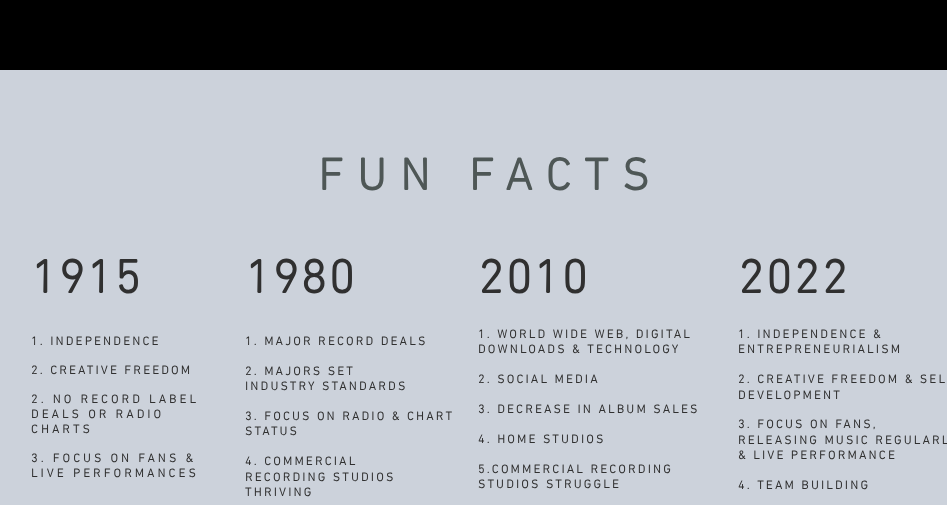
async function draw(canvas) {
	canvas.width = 947;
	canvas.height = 505;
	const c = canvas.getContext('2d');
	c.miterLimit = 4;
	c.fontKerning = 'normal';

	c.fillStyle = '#000';
	c.fillRect(0, 0, 947, 505);
	c.fillStyle = '#ccd2db';
	c.fillRect(0, 70, 947, 435);
	c.letterSpacing = '13.75px';
	c.font = 'bold 46px "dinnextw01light"';
	c.fillStyle = '#4e5756';
	c.fillText('FUN FACTS', 318, 190);
	c.letterSpacing = '2.4px';
	c.font = 'bold 48px "dinnextw01light"';
	c.fillStyle = '#303030';
	for (const [text, x, y] of [
		['1915', 31, 293],
		['1980', 245, 293],
		['2010', 478, 293],
		['2022', 738, 293],
	]) {
		c.fillText(text, x, y);
	}
	c.font = 'bold 12px "dinnextw01light"';
	c.fillText('1. INDEPENDENCE', 31, 345);
	c.fillText('2. CREATIVE FREEDOM', 31, 374);
	c.letterSpacing = '3.25px';
	for (const [text, x, y] of [
		['2. NO RECORD LABEL', 31, 403],
		['DEALS OR RADIO', 31, 418],
		['CHARTS', 31, 433],
		['3. FOCUS ON FANS &', 31, 462],
		['LIVE PERFORMANCES', 31, 477],
	]) {
		c.fillText(text, x, y);
	}
	c.letterSpacing = '2.4px';
	for (const [text, x, y] of [
		['1. MAJOR RECORD DEALS', 245, 345],
		['2. MAJORS SET', 245, 375],
		['INDUSTRY STANDARDS', 245, 390],
		['3. FOCUS ON RADIO & CHART', 245, 420],
		['STATUS', 245, 435],
		['4. COMMERCIAL', 245, 465],
		['RECORDING STUDIOS', 245, 481],
		['THRIVING', 245, 496],
		['1. WORLD WIDE WEB, DIGITAL', 478, 338],
		['DOWNLOADS & TECHNOLOGY', 478, 353],
		['2. SOCIAL MEDIA', 478, 383],
		['3. DECREASE IN ALBUM SALES', 478, 413],
		['4. HOME STUDIOS', 478, 443],
		['5.COMMERCIAL RECORDING', 478, 473],
		['STUDIOS STRUGGLE', 478, 488],
		['1. INDEPENDENCE &', 738, 338],
		['ENTREPRENEURIALISM', 738, 353],
		['2. CREATIVE FREEDOM & SEL', 738, 383],
		['DEVELOPMENT', 738, 399],
		['3. FOCUS ON FANS,', 738, 428],
		['RELEASING MUSIC REGULARL', 738, 444],
		['& LIVE PERFORMANCE', 738, 459],
		['4. TEAM BUILDING', 738, 489],
	]) {
		c.fillText(text, x, y);
	}
}

draw(document.querySelector('canvas'));
